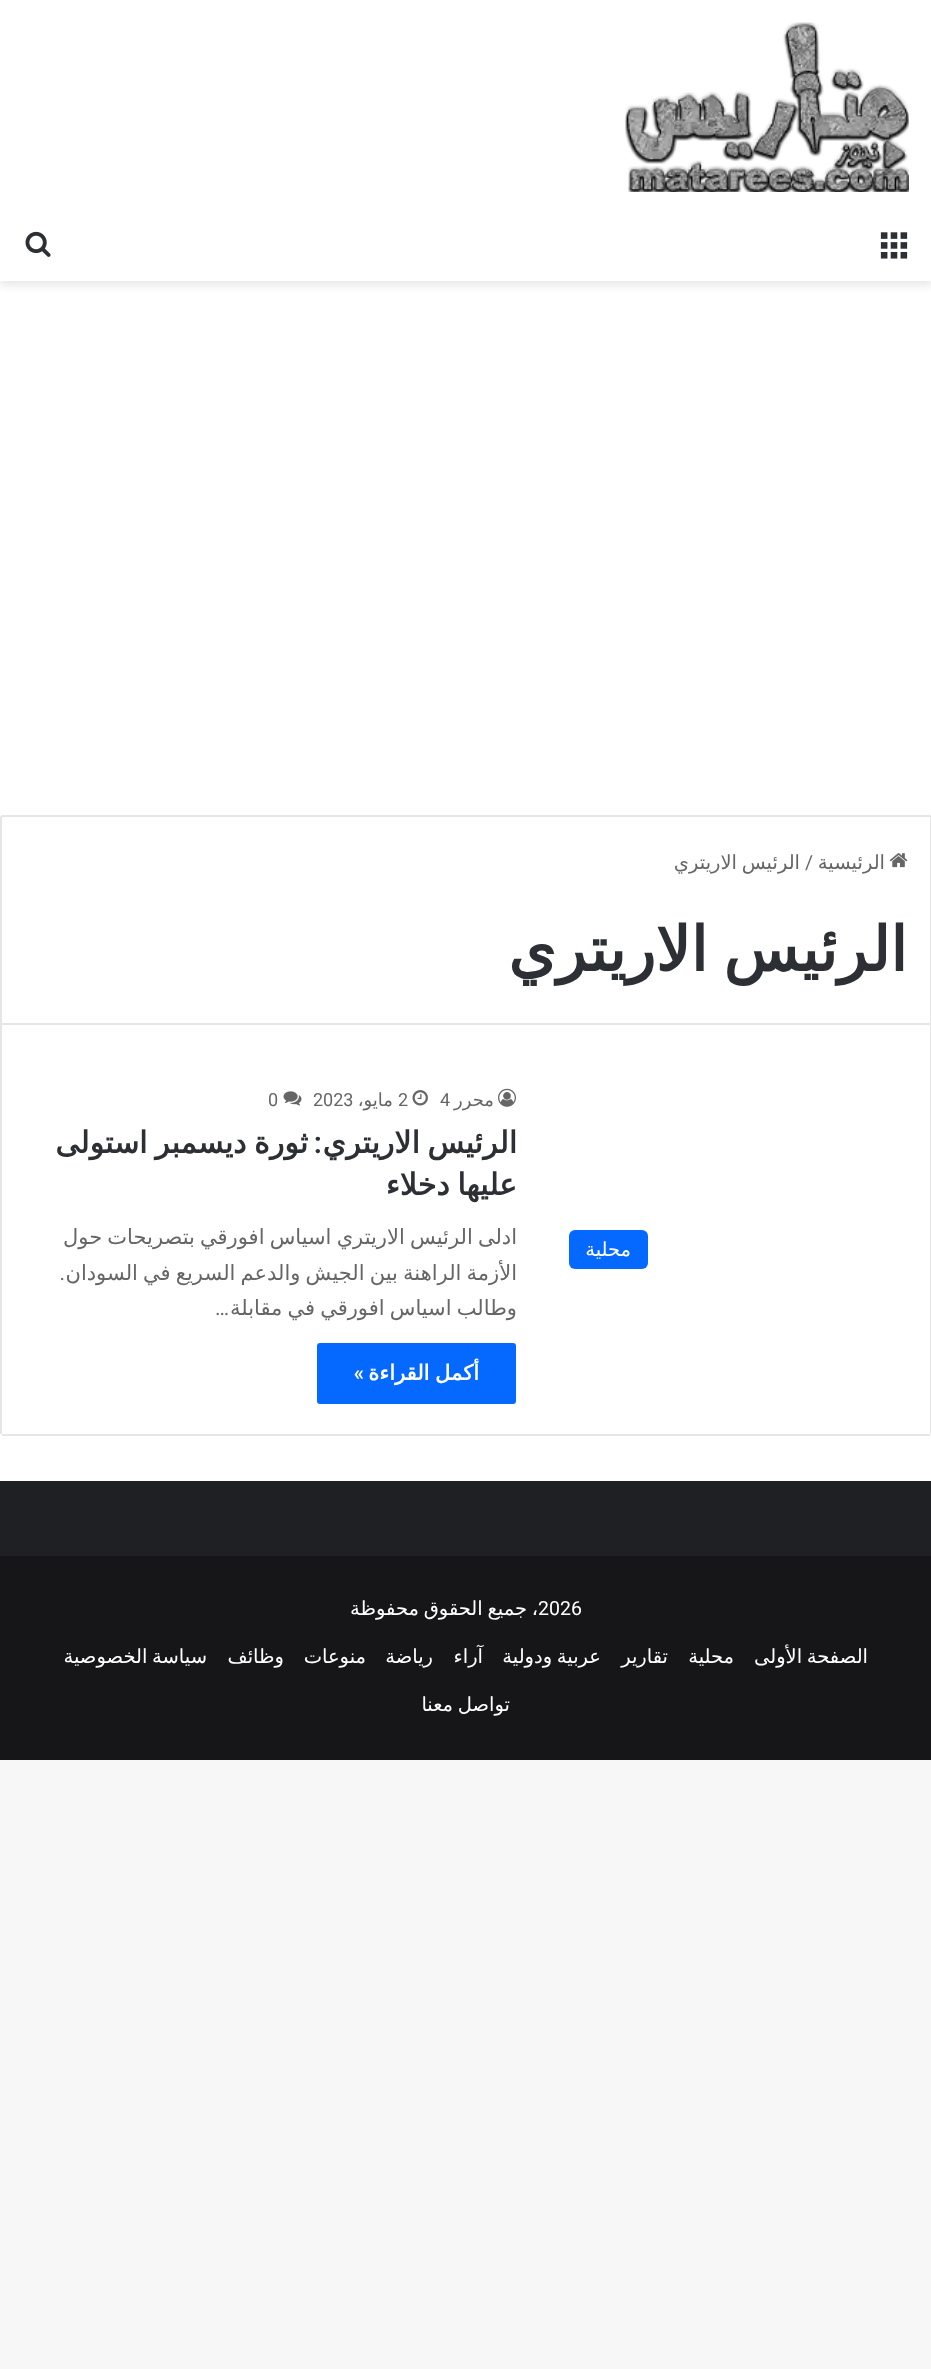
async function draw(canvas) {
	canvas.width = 931;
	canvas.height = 2369;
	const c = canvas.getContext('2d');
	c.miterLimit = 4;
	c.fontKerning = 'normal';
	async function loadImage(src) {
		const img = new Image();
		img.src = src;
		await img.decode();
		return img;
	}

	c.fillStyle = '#f7f7f7';
	c.fillRect(0, 0, 931, 2369);
	c.fillStyle = '#fff';
	c.fillRect(0, 281, 931, 1200);
	c.fillStyle = '#0000001a';
	c.filter = 'blur(5px)';
	c.beginPath();
	c.rect(0, 5, 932, 280);
	c.fill();
	c.filter = 'none';
	c.fillStyle = '#fff';
	c.fillRect(0, 0, 931, 281);
	c.drawImage(await loadImage('img1.png'), 625, 22, 284, 170);
	c.drawImage(await loadImage('img2.png'), 880, 232, 28, 27);
	c.drawImage(await loadImage('img3.png'), 25, 231, 26, 26);
	c.beginPath();
	c.moveTo(3, 816);
	c.lineTo(929, 816);
	c.bezierCurveTo(930, 816, 931, 817, 931, 818);
	c.lineTo(931, 1024);
	c.lineTo(1, 1024);
	c.lineTo(1, 818);
	c.bezierCurveTo(1, 817, 2, 816, 3, 816);
	c.closePath();
	c.strokeStyle = '#e6e6e6';
	c.lineWidth = 2;
	c.stroke();
	c.drawImage(await loadImage('img4.png'), 889, 853, 19, 15);
	c.direction = 'rtl';
	c.font = '19.5px DejaVu Sans';
	c.fillStyle = '#666';
	c.fillText('الرئيسية', 885, 869);
	c.direction = 'ltr';
	c.font = '19.5px Roboto';
	c.fillText('/', 805, 869);
	c.wordSpacing = '-1.5px';
	c.direction = 'rtl';
	c.font = '19.5px DejaVu Sans';
	c.fillText('الرئيس الاريتري', 800, 869);
	c.wordSpacing = '-4px';
	c.font = 'bold 61.5px DejaVu Sans';
	c.fillStyle = '#2c2f34';
	c.fillText('الرئيس الاريتري', 907, 971);
	for (const [x, y, w, h, color] of [
		[930, 1025, 1, 409, '#e6e6e6'],
		[2, 1434, 928, 2, '#e6e6e6'],
		[0, 1025, 2, 409, '#e6e6e6'],
	]) {
		c.fillStyle = color;
		c.fillRect(x, y, w, h);
	}
	c.fillStyle = '#0669ff';
	c.beginPath();
	c.roundRect(569, 1230, 79, 39, 6);
	c.fill();
	c.wordSpacing = '0px';
	c.font = '19.5px DejaVu Sans';
	c.fillStyle = '#fff';
	c.fillText('محلية', 631, 1256);
	c.drawImage(await loadImage('img5.png'), 498, 1088, 18, 19);
	c.font = '18px DejaVu Sans';
	c.fillStyle = '#666';
	c.fillText('محرر', 494, 1106);
	c.direction = 'ltr';
	c.font = '18px Roboto';
	c.fillText('4', 440, 1106);
	c.drawImage(await loadImage('img6.png'), 412, 1090, 16, 16);
	c.fillText('2', 398, 1106);
	c.direction = 'rtl';
	c.font = '18px DejaVu Sans';
	c.fillText('مايو،', 393, 1106);
	c.direction = 'ltr';
	c.font = '18px Roboto';
	c.fillText('2023', 313, 1106);
	c.drawImage(await loadImage('img7.png'), 283, 1091, 19, 15);
	c.fillText('0', 268, 1106);
	c.wordSpacing = '-2px';
	c.direction = 'rtl';
	c.font = 'bold 30px DejaVu Sans';
	c.fillStyle = '#2c2f34';
	c.fillText('الرئيس الاريتري', 517, 1153);
	c.wordSpacing = '0px';
	c.font = '600 30px Roboto';
	c.fillText(':', 322, 1153);
	c.wordSpacing = '-2px';
	c.font = 'bold 30px DejaVu Sans';
	c.fillText('ثورة ديسمبر استولى', 308, 1153);
	c.fillText('عليها دخلاء', 517, 1195);
	c.wordSpacing = '-1.5px';
	c.font = '21px DejaVu Sans';
	c.fillStyle = '#666';
	c.fillText('ادلى الرئيس الاريتري اسياس افورقي بتصريحات حول', 517, 1244);
	c.fillText('الأزمة الراهنة بين الجيش والدعم السريع في السودان', 517, 1280);
	c.wordSpacing = '0px';
	c.font = '21px Roboto';
	c.fillText('.', 65, 1280);
	c.wordSpacing = '-1.5px';
	c.font = '21px DejaVu Sans';
	c.fillText('وطالب اسياس افورقي في مقابلة', 517, 1315);
	c.wordSpacing = '0px';
	c.font = '21px Roboto';
	c.fillText('…', 229, 1315);
	c.fillStyle = '#0669ff';
	c.beginPath();
	c.roundRect(317, 1343, 199, 61, 3);
	c.fill();
	c.wordSpacing = '-1px';
	c.font = 'bold 21px DejaVu Sans';
	c.fillStyle = '#fff';
	c.fillText('أكمل القراءة', 479, 1380);
	c.wordSpacing = '0px';
	c.font = '600 21px Roboto';
	c.fillText('»', 364, 1380);
	c.fillStyle = '#1f2024';
	c.fillRect(0, 1481, 931, 75);
	c.fillStyle = '#161619';
	c.fillRect(0, 1556, 931, 204);
	c.wordSpacing = '-1.5px';
	c.font = '19.5px DejaVu Sans';
	c.fillStyle = '#fff';
	c.fillText('، جميع الحقوق محفوظة', 538, 1615);
	c.wordSpacing = '0px';
	c.direction = 'ltr';
	c.font = '19.5px Roboto';
	c.fillText('2026', 538, 1615);
	c.wordSpacing = '-1.5px';
	c.direction = 'rtl';
	c.font = '19.5px DejaVu Sans';
	c.fillText('الصفحة الأولى', 868, 1663);
	c.wordSpacing = '0px';
	c.fillText('محلية', 734, 1663);
	c.fillText('تقارير', 668, 1663);
	c.wordSpacing = '-1.5px';
	c.fillText('عربية ودولية', 601, 1663);
	c.wordSpacing = '0px';
	for (const [text, x, y] of [
		['آراء', 483, 1663],
		['رياضة', 433, 1663],
		['منوعات', 366, 1663],
		['وظائف', 284, 1663],
	]) {
		c.fillText(text, x, y);
	}
	c.wordSpacing = '-1.5px';
	c.fillText('سياسة الخصوصية', 207, 1663);
	c.fillText('تواصل معنا', 510, 1711);
}

draw(document.querySelector('canvas'));
